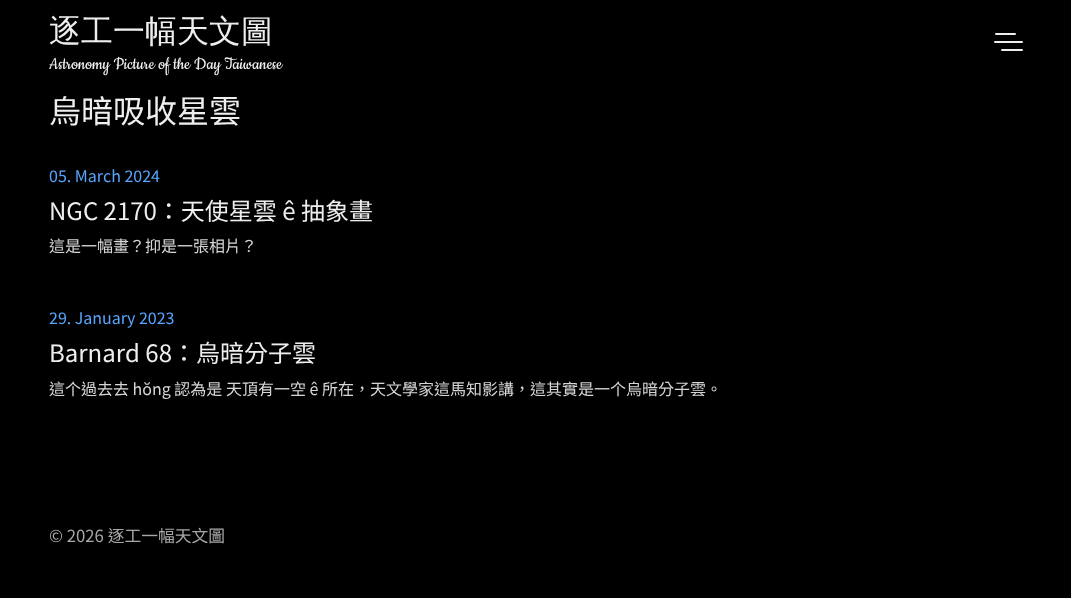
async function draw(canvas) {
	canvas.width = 1071;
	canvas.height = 598;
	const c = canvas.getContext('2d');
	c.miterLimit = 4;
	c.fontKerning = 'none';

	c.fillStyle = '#000';
	c.fillRect(0, 0, 1071, 598);
	c.font = '500 32px WenQuanYi Zen Hei';
	c.fillStyle = '#eee';
	c.fillText('逐工一幅天文圖', 49, 42);
	c.font = '19.25px Cookie';
	c.fillText('Astronomy Picture of the Day Taiwanese', 49, 69);
	c.beginPath();
	c.roundRect(994, 41, 29, 2, 1);
	c.fill();
	c.beginPath();
	c.roundRect(995, 33, 21, 2, 1);
	c.fill();
	c.beginPath();
	c.roundRect(1001, 49, 22, 2, 1);
	c.fill();
	c.font = '32px Noto Sans TC';
	c.fillText('烏暗吸收星雲', 49, 123);
	c.font = '16px Noto Sans TC';
	c.fillStyle = '#58a6ff';
	c.fillText('05. March 2024', 49, 182);
	c.font = '24px Noto Sans TC';
	c.fillStyle = '#eee';
	c.fillText('NGC 2170：天使星雲 ê 抽象畫', 49, 220);
	c.font = '16px Noto Sans TC';
	c.fillStyle = '#d6d6d6';
	c.fillText('這是一幅畫？抑是一張相片？', 49, 252);
	c.fillStyle = '#58a6ff';
	c.fillText('29. January 2023', 49, 324);
	c.font = '24px Noto Sans TC';
	c.fillStyle = '#eee';
	c.fillText('Barnard 68：烏暗分子雲', 49, 362);
	c.font = '16px Noto Sans TC';
	c.fillStyle = '#d6d6d6';
	c.fillText('這个過去去 hŏng 認為是 天頂有一空 ê 所在，天文學家這馬知影講，這其實是一个烏暗分子雲。', 49, 395);
	c.font = '16.75px Noto Sans TC';
	c.fillStyle = '#a7a7a7';
	c.fillText('© 2026 逐工一幅天文圖', 49, 542);
}

draw(document.querySelector('canvas'));
